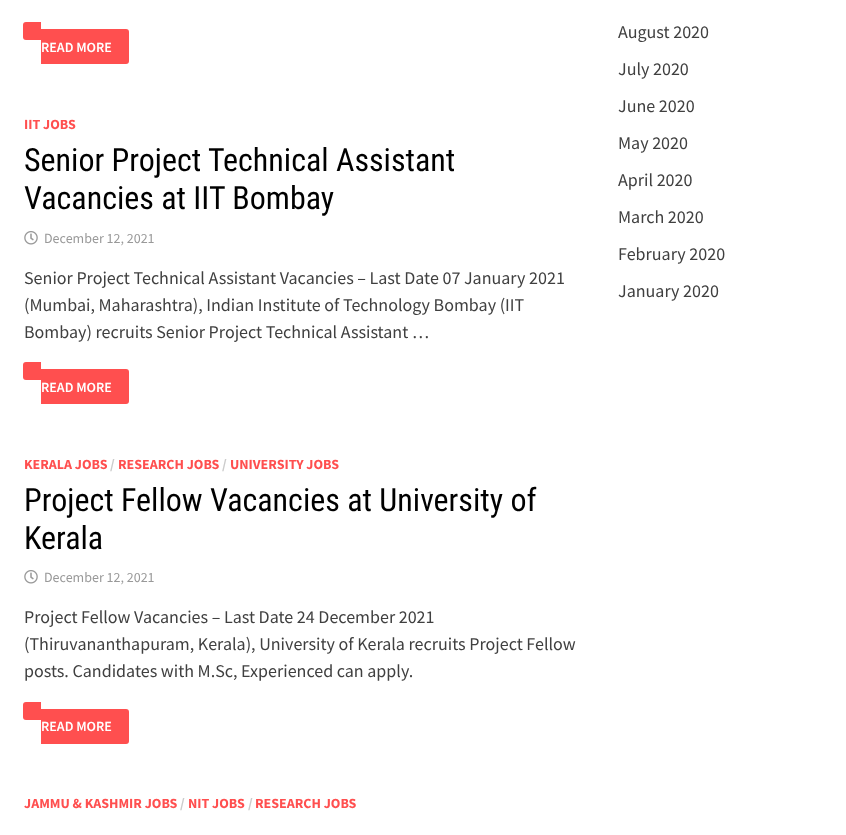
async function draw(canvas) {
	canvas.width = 846;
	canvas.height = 835;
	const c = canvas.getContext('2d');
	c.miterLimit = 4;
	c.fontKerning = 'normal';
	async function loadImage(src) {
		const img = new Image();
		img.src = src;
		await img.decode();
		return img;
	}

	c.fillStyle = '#fff';
	c.fillRect(0, 0, 846, 835);
	c.fillStyle = '#ff4f4f';
	c.beginPath();
	c.roundRect(41, 29, 88, 35, [0, 3, 3, 0]);
	c.fill();
	c.font = '600 14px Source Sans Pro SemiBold';
	c.fillStyle = '#fff';
	c.fillText('READ MORE', 41, 52);
	c.fillStyle = '#ff4f4f';
	c.beginPath();
	c.roundRect(23, 22, 18, 18, [3, 0, 0, 3]);
	c.fill();
	c.font = 'bold 14px Source Sans Pro';
	c.fillText('IIT JOBS', 24, 129);
	c.font = '32px Roboto Condensed';
	c.fillStyle = '#000';
	c.fillText('Senior Project Technical Assistant', 24, 171);
	c.fillText('Vacancies at IIT Bombay', 24, 209);
	c.drawImage(await loadImage('img1.png'), 24, 231, 14, 14);
	c.font = '14px Source Sans Pro';
	c.fillStyle = '#999';
	c.fillText('December 12, 2021', 44, 243);
	c.font = '18px Source Sans Pro';
	c.fillStyle = '#404040';
	for (const [text, x, y] of [
		['Senior Project Technical Assistant Vacancies – Last Date 07 January 2021', 24, 284],
		['(Mumbai, Maharashtra), Indian Institute of Technology Bombay (IIT', 24, 311],
		['Bombay) recruits Senior Project Technical Assistant …', 24, 338],
	]) {
		c.fillText(text, x, y);
	}
	c.fillStyle = '#ff4f4f';
	c.beginPath();
	c.roundRect(41, 369, 88, 35, [0, 3, 3, 0]);
	c.fill();
	c.font = '600 14px Source Sans Pro SemiBold';
	c.fillStyle = '#fff';
	c.fillText('READ MORE', 41, 392);
	c.fillStyle = '#ff4f4f';
	c.beginPath();
	c.roundRect(23, 362, 18, 18, [3, 0, 0, 3]);
	c.fill();
	c.font = 'bold 14px Source Sans Pro';
	c.fillText('KERALA JOBS', 24, 469);
	c.fillStyle = '#ccc';
	c.fillText('/', 110, 469);
	c.fillStyle = '#ff4f4f';
	c.fillText('RESEARCH JOBS', 118, 469);
	c.fillStyle = '#ccc';
	c.fillText('/', 222, 469);
	c.fillStyle = '#ff4f4f';
	c.fillText('UNIVERSITY JOBS', 230, 469);
	c.font = '32px Roboto Condensed';
	c.fillStyle = '#000';
	c.fillText('Project Fellow Vacancies at University of', 24, 511);
	c.fillText('Kerala', 24, 549);
	c.drawImage(await loadImage('img1.png'), 24, 570, 14, 14);
	c.font = '14px Source Sans Pro';
	c.fillStyle = '#999';
	c.fillText('December 12, 2021', 44, 582);
	c.font = '18px Source Sans Pro';
	c.fillStyle = '#404040';
	for (const [text, x, y] of [
		['Project Fellow Vacancies – Last Date 24 December 2021', 24, 623],
		['(Thiruvananthapuram, Kerala), University of Kerala recruits Project Fellow', 24, 650],
		['posts. Candidates with M.Sc, Experienced can apply.', 24, 677],
	]) {
		c.fillText(text, x, y);
	}
	c.fillStyle = '#ff4f4f';
	c.beginPath();
	c.roundRect(41, 709, 88, 35, [0, 3, 3, 0]);
	c.fill();
	c.font = '600 14px Source Sans Pro SemiBold';
	c.fillStyle = '#fff';
	c.fillText('READ MORE', 41, 731);
	c.fillStyle = '#ff4f4f';
	c.beginPath();
	c.roundRect(23, 702, 18, 18, [3, 0, 0, 3]);
	c.fill();
	c.font = 'bold 14px Source Sans Pro';
	c.fillText('JAMMU & KASHMIR JOBS', 24, 808);
	c.fillStyle = '#ccc';
	c.fillText('/', 180, 808);
	c.fillStyle = '#ff4f4f';
	c.fillText('NIT JOBS', 188, 808);
	c.fillStyle = '#ccc';
	c.fillText('/', 248, 808);
	c.fillStyle = '#ff4f4f';
	c.fillText('RESEARCH JOBS', 255, 808);
	c.font = '18px Source Sans Pro';
	c.fillStyle = '#404040';
	for (const [text, x, y] of [
		['August 2020', 618, 38],
		['July 2020', 618, 75],
		['June 2020', 618, 112],
		['May 2020', 618, 149],
		['April 2020', 618, 186],
		['March 2020', 618, 223],
		['February 2020', 618, 260],
		['January 2020', 618, 297],
	]) {
		c.fillText(text, x, y);
	}
}

draw(document.querySelector('canvas'));
